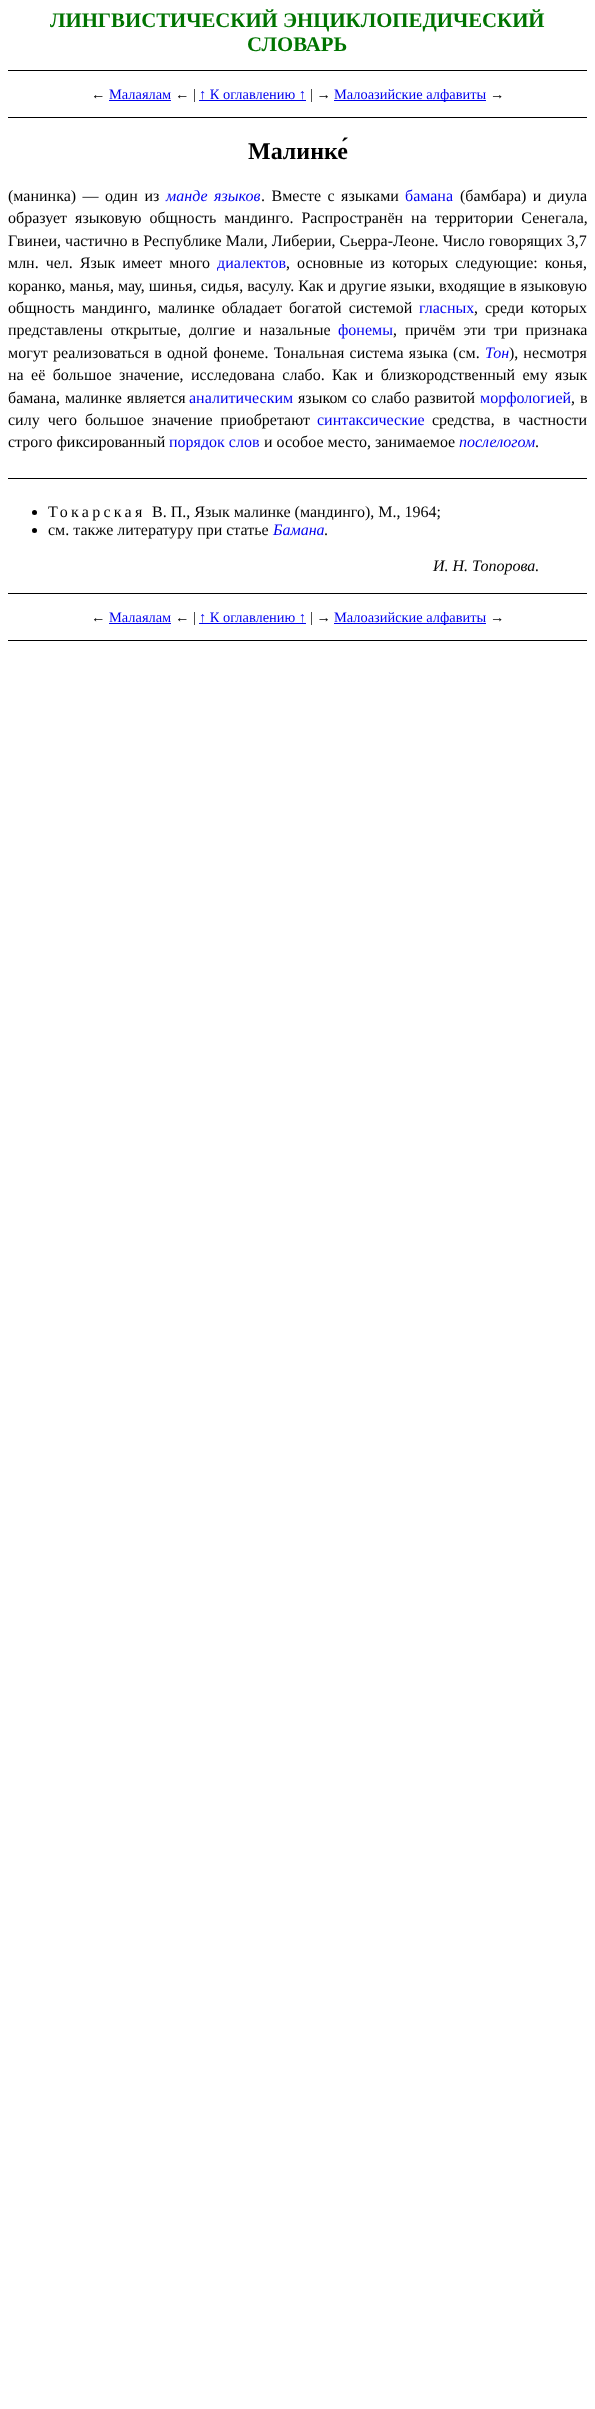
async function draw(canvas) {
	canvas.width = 595;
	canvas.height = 2409;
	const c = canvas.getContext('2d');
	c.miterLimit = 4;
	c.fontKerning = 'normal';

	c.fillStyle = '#fff';
	c.fillRect(0, 0, 595, 2409);
	c.font = 'bold 20.8px Liberation Serif';
	c.fillStyle = '#007400';
	c.fillText('ЛИНГВИСТИЧЕСКИЙ ЭНЦИКЛОПЕДИЧЕСКИЙ', 50, 27);
	c.fillText('СЛОВАРЬ', 247, 51);
	c.fillStyle = '#000';
	c.fillRect(8, 70, 579, 1);
	c.fillRect(8, 117, 579, 1);
	c.font = '14.4px Liberation Serif';
	c.fillText('←', 91, 99);
	c.fillStyle = '#00e';
	c.fillText('Малаялам', 109, 99);
	c.fillRect(109, 100, 62, 1);
	c.fillStyle = '#000';
	c.fillText('← |', 175, 99);
	c.fillStyle = '#00e';
	c.fillText('↑ К оглавлению ↑', 199, 99);
	c.fillRect(199, 100, 107, 1);
	c.fillStyle = '#000';
	c.fillText('| →', 310, 99);
	c.fillStyle = '#00e';
	c.fillRect(334, 100, 152, 1);
	c.fillText('Малоазийские алфавиты', 334, 99);
	c.fillStyle = '#000';
	c.fillText('→', 490, 99);
	c.font = 'bold 24px Liberation Serif';
	c.fillText('Малинке́', 248, 159);
	c.wordSpacing = '2.5px';
	c.font = '16px Liberation Serif';
	c.fillText('(манинка) — один из', 8, 201);
	c.font = 'italic 16px Liberation Serif';
	c.fillStyle = '#00e';
	c.fillText('манде языков', 166, 201);
	c.font = '16px Liberation Serif';
	c.fillStyle = '#000';
	c.fillText('. Вместе с языками', 261, 201);
	c.wordSpacing = '0px';
	c.fillStyle = '#00e';
	c.fillText('бамана', 405, 201);
	c.wordSpacing = '2.5px';
	c.fillStyle = '#000';
	c.fillText('(бамбара) и диула', 460, 201);
	c.wordSpacing = '4px';
	c.fillText('образует языковую общность мандинго. Распространён на территории Сенегала,', 8, 223);
	c.wordSpacing = '0.1px';
	c.fillText('Гвинеи, частично в Республике Мали, Либерии, Сьерра-Леоне. Число говорящих 3,7', 8, 246);
	c.wordSpacing = '3px';
	c.fillText('млн. чел. Язык имеет много', 8, 268);
	c.wordSpacing = '0px';
	c.fillStyle = '#00e';
	c.fillText('диалектов', 217, 268);
	c.wordSpacing = '3px';
	c.fillStyle = '#000';
	c.fillText(', основные из которых следующие: конья,', 286, 268);
	c.wordSpacing = '0px';
	c.fillText('коранко, манья, мау, шинья, сидья, васулу. Как и другие языки, входящие в языковую', 8, 291);
	c.wordSpacing = '3px';
	c.fillText('общность мандинго, малинке обладает богатой системой', 8, 313);
	c.wordSpacing = '0px';
	c.fillStyle = '#00e';
	c.fillText('гласных', 419, 313);
	c.wordSpacing = '3px';
	c.fillStyle = '#000';
	c.fillText(', среди которых', 474, 313);
	c.wordSpacing = '4px';
	c.fillText('представлены открытые, долгие и назальные', 8, 335);
	c.wordSpacing = '0px';
	c.fillStyle = '#00e';
	c.fillText('фонемы', 338, 335);
	c.wordSpacing = '4px';
	c.fillStyle = '#000';
	c.fillText(', причём эти три признака', 393, 335);
	c.wordSpacing = '1.25px';
	c.fillText('могут реализоваться в одной фонеме. Тональная система языка (см.', 8, 358);
	c.wordSpacing = '0px';
	c.font = 'italic 16px Liberation Serif';
	c.fillStyle = '#00e';
	c.fillText('Тон', 485, 358);
	c.wordSpacing = '1px';
	c.font = '16px Liberation Serif';
	c.fillStyle = '#000';
	c.fillText('), несмотря', 509, 358);
	c.wordSpacing = '3.4px';
	c.fillText('на её большое значение, исследована слабо. Как и близкородственный ему язык', 8, 380);
	c.wordSpacing = '1px';
	c.fillText('бамана, малинке является', 8, 403);
	c.wordSpacing = '0px';
	c.fillStyle = '#00e';
	c.fillText('аналитическим', 189, 403);
	c.wordSpacing = '0.5px';
	c.fillStyle = '#000';
	c.fillText('языком со слабо развитой', 298, 403);
	c.wordSpacing = '0px';
	c.fillStyle = '#00e';
	c.fillText('морфологией', 480, 403);
	c.wordSpacing = '1px';
	c.fillStyle = '#000';
	c.fillText(', в', 571, 403);
	c.wordSpacing = '4px';
	c.fillText('силу чего большое значение приобретают', 8, 425);
	c.wordSpacing = '0px';
	c.fillStyle = '#00e';
	c.fillText('синтаксические', 317, 425);
	c.wordSpacing = '4px';
	c.fillStyle = '#000';
	c.fillText('средства, в частности', 432, 425);
	c.wordSpacing = '0px';
	c.fillText('строго фиксированный', 8, 447);
	c.fillStyle = '#00e';
	c.fillText('порядок слов', 169, 447);
	c.fillStyle = '#000';
	c.fillText('и особое место, занимаемое', 264, 447);
	c.font = 'italic 16px Liberation Serif';
	c.fillStyle = '#00e';
	c.fillText('послелогом', 459, 447);
	c.font = '16px Liberation Serif';
	c.fillStyle = '#000';
	c.fillText('.', 535, 447);
	c.fillRect(8, 478, 579, 1);
	c.beginPath();
	c.arc(34.5, 512.5, 2.5, 0, 2 * Math.PI);
	c.fill();
	c.letterSpacing = '3.25px';
	c.fillText('Токарская', 48, 517);
	c.letterSpacing = '0px';
	c.fillText('В. П., Язык малинке (мандинго), М., 1964;', 152, 517);
	c.beginPath();
	c.arc(34.5, 530.5, 2.5, 0, 2 * Math.PI);
	c.fill();
	c.fillText('см. также литературу при статье', 48, 535);
	c.font = 'italic 16px Liberation Serif';
	c.fillStyle = '#00e';
	c.fillText('Бамана', 273, 535);
	c.font = '16px Liberation Serif';
	c.fillStyle = '#000';
	c.fillText('.', 324, 535);
	c.font = 'italic 16px Liberation Serif';
	c.fillText('И. Н. Топорова.', 433, 571);
	c.fillRect(8, 593, 579, 1);
	c.fillRect(8, 640, 579, 1);
	c.font = '14.4px Liberation Serif';
	c.fillText('←', 91, 622);
	c.fillStyle = '#00e';
	c.fillText('Малаялам', 109, 622);
	c.fillRect(109, 623, 62, 1);
	c.fillStyle = '#000';
	c.fillText('← |', 175, 622);
	c.fillStyle = '#00e';
	c.fillText('↑ К оглавлению ↑', 199, 622);
	c.fillRect(199, 623, 107, 1);
	c.fillStyle = '#000';
	c.fillText('| →', 310, 622);
	c.fillStyle = '#00e';
	c.fillRect(334, 623, 152, 1);
	c.fillText('Малоазийские алфавиты', 334, 622);
	c.fillStyle = '#000';
	c.fillText('→', 490, 622);
}

draw(document.querySelector('canvas'));
